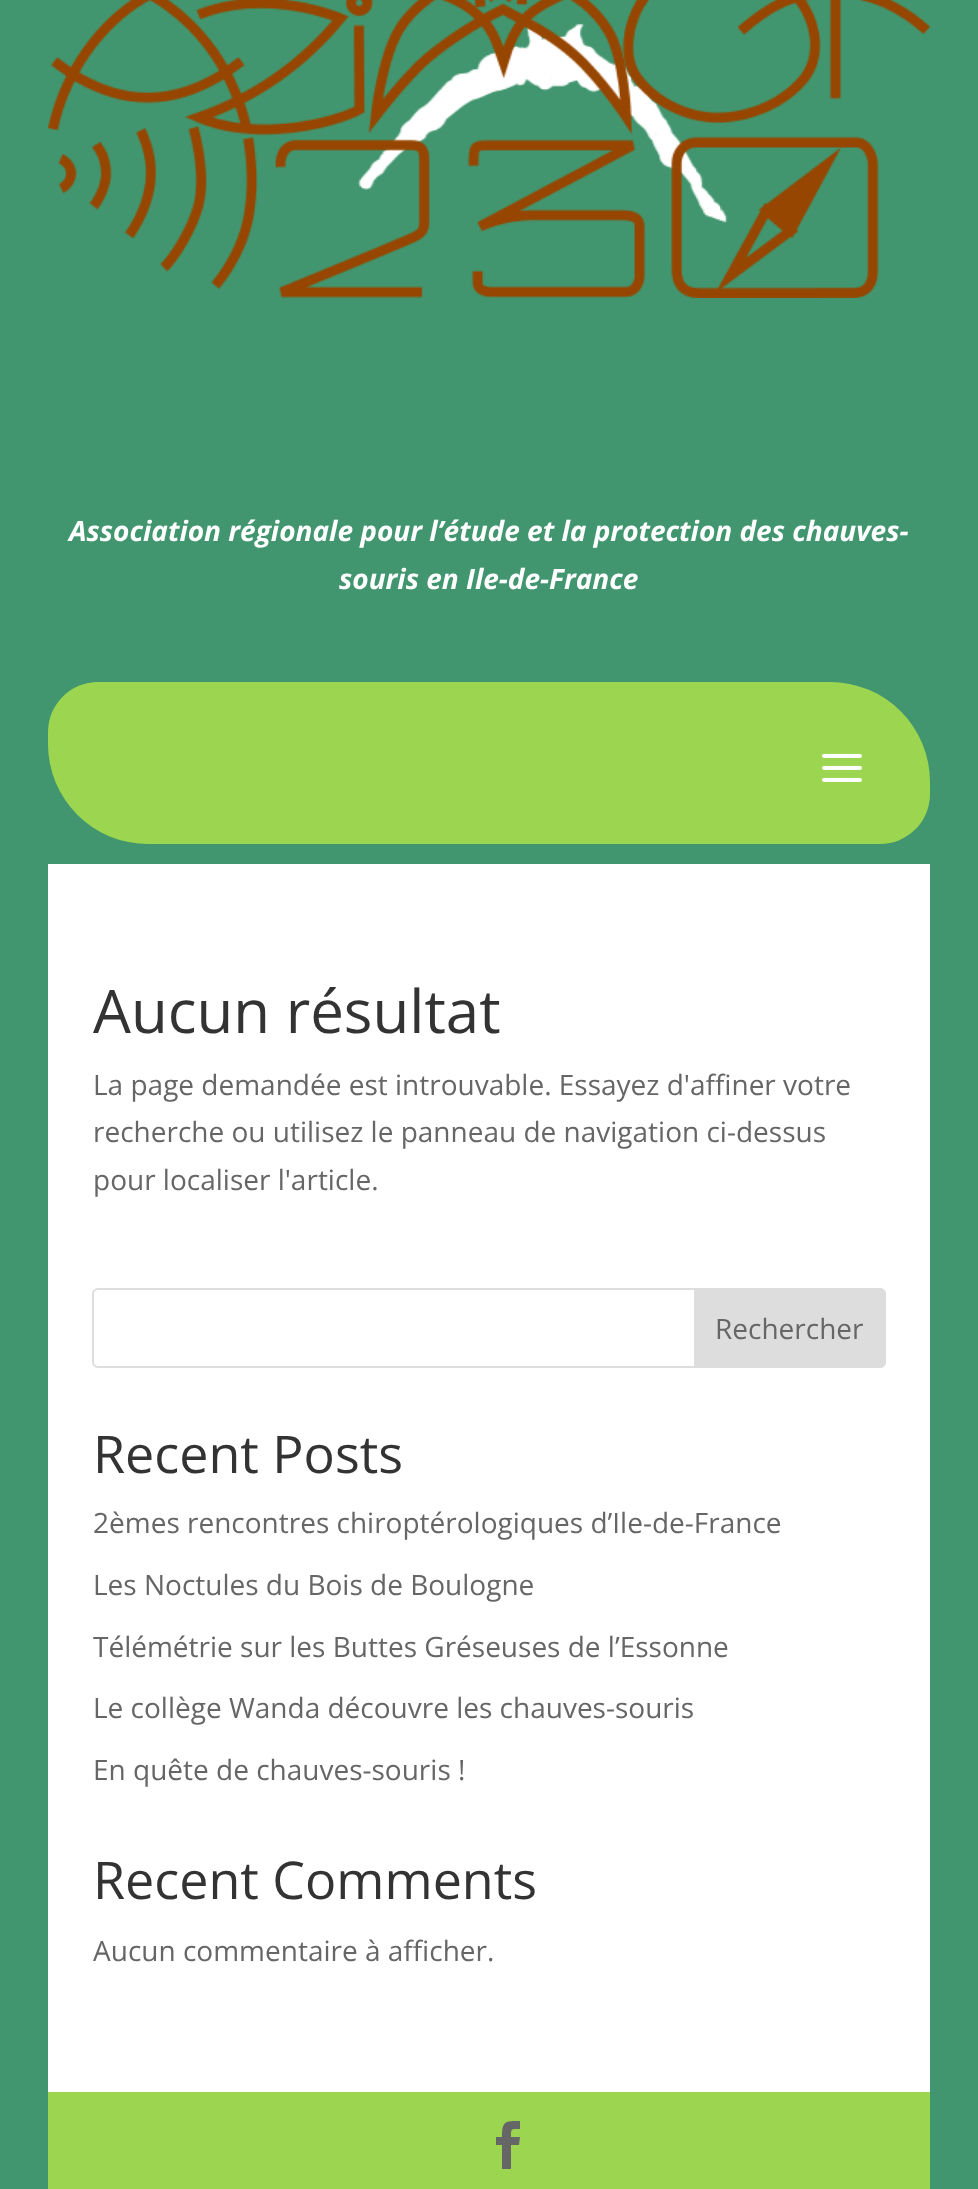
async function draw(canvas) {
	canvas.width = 978;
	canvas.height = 2189;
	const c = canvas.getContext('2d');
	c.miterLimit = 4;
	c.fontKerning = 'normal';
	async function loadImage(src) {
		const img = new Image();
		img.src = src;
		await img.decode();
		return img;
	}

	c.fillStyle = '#41966f';
	c.fillRect(0, 0, 978, 2189);
	c.drawImage(await loadImage('img1.png'), 357, 18, 371, 205);
	c.drawImage(await loadImage('img2.png'), 48, 0, 882, 298);
	c.font = 'italic bold 28px Open Sans';
	c.fillStyle = '#fff';
	c.fillText('Association régionale pour l’étude et la protection des chauves-', 69, 541);
	c.fillText('souris en Ile-de-France', 339, 589);
	c.fillStyle = '#9cd650';
	c.beginPath();
	c.roundRect(48, 682, 882, 162, [50, 100, 50, 100]);
	c.fill();
	c.drawImage(await loadImage('img3.png'), 822, 753, 40, 29);
	c.fillStyle = '#fff';
	c.fillRect(48, 864, 882, 1228);
	c.font = '60px Open Sans';
	c.fillStyle = '#333';
	c.fillText('Aucun résultat', 93, 1033);
	c.font = '28px Open Sans';
	c.fillStyle = '#666';
	for (const [text, x, y] of [
		['La page demandée est introuvable. Essayez d\'affiner votre', 93, 1095],
		['recherche ou utilisez le panneau de navigation ci-dessus', 93, 1142],
		['pour localiser l\'article.', 93, 1190],
	]) {
		c.fillText(text, x, y);
	}
	c.beginPath();
	c.roundRect(93, 1289, 792, 78, 5);
	c.strokeStyle = '#ddd';
	c.lineWidth = 2;
	c.stroke();
	c.fillStyle = '#ddd';
	c.beginPath();
	c.roundRect(695, 1289, 190, 78, [0, 5, 5, 0]);
	c.fill();
	c.stroke();
	c.fillStyle = '#666';
	c.fillText('Rechercher', 715, 1339);
	c.font = '52px Open Sans';
	c.fillStyle = '#333';
	c.fillText('Recent Posts', 93, 1473);
	c.font = '28px Open Sans';
	c.fillStyle = '#666';
	for (const [text, x, y] of [
		['2èmes rencontres chiroptérologiques d’Ile-de-France', 93, 1533],
		['Les Noctules du Bois de Boulogne', 93, 1595],
		['Télémétrie sur les Buttes Gréseuses de l’Essonne', 93, 1657],
		['Le collège Wanda découvre les chauves-souris', 93, 1718],
		['En quête de chauves-souris !', 93, 1780],
	]) {
		c.fillText(text, x, y);
	}
	c.font = '52px Open Sans';
	c.fillStyle = '#333';
	c.fillText('Recent Comments', 93, 1899);
	c.font = '28px Open Sans';
	c.fillStyle = '#666';
	c.fillText('Aucun commentaire à afficher.', 93, 1961);
	c.fillStyle = '#9cd650';
	c.fillRect(48, 2092, 882, 97);
	c.fillStyle = '#666';
	c.beginPath();
	c.moveTo(502, 2169);
	c.lineTo(511, 2169);
	c.lineTo(511, 2145);
	c.lineTo(519, 2145);
	c.lineTo(520, 2137);
	c.lineTo(511, 2137);
	c.bezierCurveTo(511, 2128, 511, 2129, 520, 2129);
	c.lineTo(520, 2121);
	c.bezierCurveTo(505, 2121, 502, 2121, 502, 2137);
	c.lineTo(496, 2137);
	c.lineTo(496, 2145);
	c.lineTo(502, 2145);
	c.closePath();
	c.fill();
}

draw(document.querySelector('canvas'));
